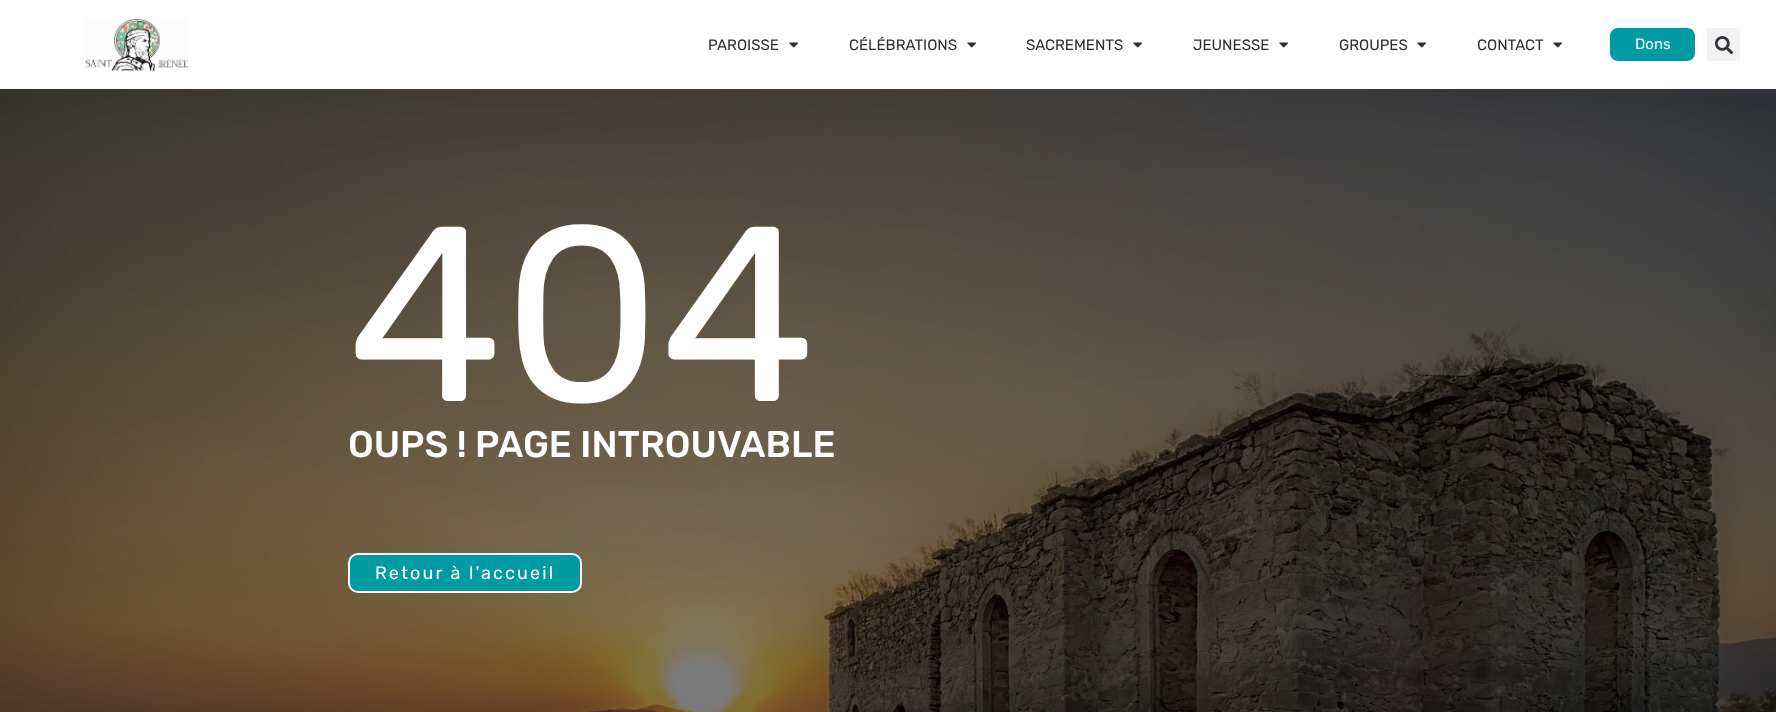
async function draw(canvas) {
	canvas.width = 1776;
	canvas.height = 712;
	const c = canvas.getContext('2d');
	c.miterLimit = 4;
	c.fontKerning = 'normal';
	async function loadImage(src) {
		const img = new Image();
		img.src = src;
		await img.decode();
		return img;
	}

	c.fillStyle = '#fff';
	c.fillRect(0, 0, 1776, 712);
	c.drawImage(await loadImage('img1.png'), 85, 18, 104, 54);
	c.font = '15px Rubik';
	c.fillStyle = '#2a302f';
	c.fillText('PAROISSE', 708, 50);
	c.drawImage(await loadImage('img2.png'), 789, 42, 9, 6);
	c.fillText('CÉLÉBRATIONS', 849, 50);
	c.drawImage(await loadImage('img2.png'), 967, 42, 9, 6);
	c.fillText('SACREMENTS', 1026, 50);
	c.drawImage(await loadImage('img2.png'), 1133, 42, 9, 6);
	c.fillText('JEUNESSE', 1193, 50);
	c.drawImage(await loadImage('img2.png'), 1279, 42, 9, 6);
	c.fillText('GROUPES', 1339, 50);
	c.drawImage(await loadImage('img2.png'), 1417, 42, 9, 6);
	c.fillText('CONTACT', 1477, 50);
	c.drawImage(await loadImage('img2.png'), 1553, 42, 9, 6);
	c.fillStyle = '#009aa3';
	c.beginPath();
	c.roundRect(1609, 27, 87, 35, 9);
	c.fill();
	c.strokeStyle = '#fff';
	c.lineWidth = 2;
	c.stroke();
	c.fillStyle = '#fff';
	c.fillText('Dons', 1635, 49);
	c.fillStyle = '#f2f2f2';
	c.beginPath();
	c.roundRect(1707, 28, 33, 33, 3);
	c.fill();
	c.drawImage(await loadImage('img3.png'), 1714, 36, 19, 19);
	c.drawImage(await loadImage('img4.png'), 0, 89, 1776, 623);
	c.font = '249px Rubik';
	c.fillStyle = '#fff';
	c.fillText('404', 348, 401);
	c.font = '500 37px Rubik';
	c.fillText('OUPS ! PAGE INTROUVABLE', 348, 457);
	c.fillStyle = '#009aa3';
	c.beginPath();
	c.roundRect(349, 554, 232, 38, 9);
	c.fill();
	c.stroke();
	c.letterSpacing = '2.1px';
	c.font = '18px Rubik';
	c.fillStyle = '#fff';
	c.fillText('Retour à l\'accueil', 375, 579);
}

draw(document.querySelector('canvas'));
